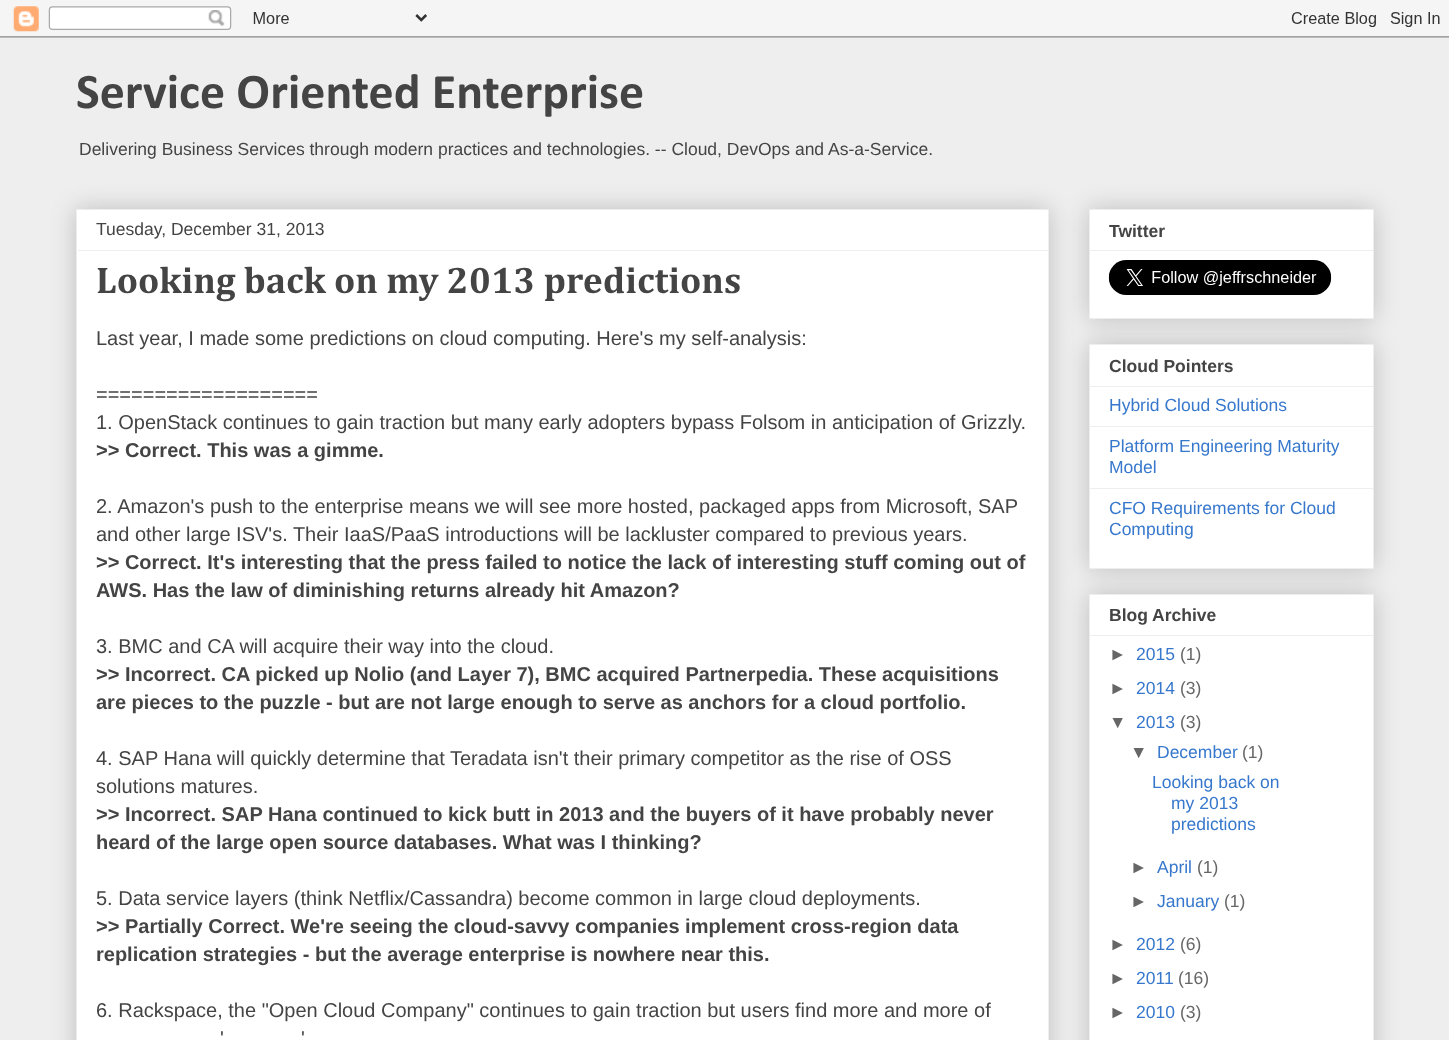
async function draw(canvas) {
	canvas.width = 1449;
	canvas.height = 1040;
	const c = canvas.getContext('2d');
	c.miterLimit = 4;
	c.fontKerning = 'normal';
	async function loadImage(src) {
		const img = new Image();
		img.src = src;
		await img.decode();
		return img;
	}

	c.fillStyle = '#eee';
	c.fillRect(0, 0, 1449, 1040);
	c.drawImage(await loadImage('img1.png'), 0, 0, 1449, 38);
	c.font = 'bold 50px Calibri';
	c.fillStyle = '#444';
	c.fillText('Service Oriented Enterprise', 76, 108);
	c.font = '17.5px Liberation Sans';
	c.fillText('Delivering Business Services through modern practices and technologies. -- Cloud, DevOps and As-a-Service.', 79, 155);
	c.fillStyle = '#00000033';
	c.filter = 'blur(12.5px)';
	c.beginPath();
	c.rect(76, 209, 973, 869);
	c.fill();
	c.filter = 'none';
	c.fillStyle = '#fff';
	c.beginPath();
	c.rect(76.5, 209.5, 972, 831);
	c.fill();
	c.strokeStyle = '#eee';
	c.stroke();
	c.fillStyle = '#444';
	c.fillText('Tuesday, December 31, 2013', 96, 235);
	c.fillStyle = '#eee';
	c.fillRect(78, 250, 970, 1);
	c.font = 'bold 37.5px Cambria';
	c.fillStyle = '#444';
	c.fillText('Looking back on my 2013 predictions', 96, 293);
	c.font = '20px Liberation Sans';
	for (const [text, x, y] of [
		['Last year, I made some predictions on cloud computing. Here\'s my self-analysis:', 96, 345],
		['===================', 96, 401],
		['1. OpenStack continues to gain traction but many early adopters bypass Folsom in anticipation of Grizzly.', 96, 429],
	]) {
		c.fillText(text, x, y);
	}
	c.font = 'bold 20px Liberation Sans';
	c.fillText('>> Correct. This was a gimme.', 96, 457);
	c.font = '20px Liberation Sans';
	c.fillText('2. Amazon\'s push to the enterprise means we will see more hosted, packaged apps from Microsoft, SAP', 96, 513);
	c.fillText('and other large ISV\'s. Their IaaS/PaaS introductions will be lackluster compared to previous years.', 96, 541);
	c.font = 'bold 20px Liberation Sans';
	c.fillText('>> Correct. It\'s interesting that the press failed to notice the lack of interesting stuff coming out of', 96, 569);
	c.fillText('AWS. Has the law of diminishing returns already hit Amazon?', 96, 597);
	c.font = '20px Liberation Sans';
	c.fillText('3. BMC and CA will acquire their way into the cloud.', 96, 653);
	c.font = 'bold 20px Liberation Sans';
	c.fillText('>> Incorrect. CA picked up Nolio (and Layer 7), BMC acquired Partnerpedia. These acquisitions', 96, 681);
	c.fillText('are pieces to the puzzle - but are not large enough to serve as anchors for a cloud portfolio.', 96, 709);
	c.font = '20px Liberation Sans';
	c.fillText('4. SAP Hana will quickly determine that Teradata isn\'t their primary competitor as the rise of OSS', 96, 765);
	c.fillText('solutions matures.', 96, 793);
	c.font = 'bold 20px Liberation Sans';
	c.fillText('>> Incorrect. SAP Hana continued to kick butt in 2013 and the buyers of it have probably never', 96, 821);
	c.fillText('heard of the large open source databases. What was I thinking?', 96, 849);
	c.font = '20px Liberation Sans';
	c.fillText('5. Data service layers (think Netflix/Cassandra) become common in large cloud deployments.', 96, 905);
	c.font = 'bold 20px Liberation Sans';
	c.fillText('>> Partially Correct. We\'re seeing the cloud-savvy companies implement cross-region data', 96, 933);
	c.fillText('replication strategies - but the average enterprise is nowhere near this.', 96, 961);
	c.font = '20px Liberation Sans';
	for (const [text, x, y] of [
		['6. Rackspace, the "Open Cloud Company" continues to gain traction but users find more and more of', 96, 1017],
		['\'', 220, 1045],
		['\'', 301, 1045],
	]) {
		c.fillText(text, x, y);
	}
	c.fillStyle = '#00000033';
	c.filter = 'blur(12.5px)';
	c.beginPath();
	c.rect(1089, 209, 285, 110);
	c.fill();
	c.filter = 'none';
	c.fillStyle = '#fff';
	c.beginPath();
	c.rect(1089.5, 209.5, 284, 109);
	c.fill();
	c.stroke();
	c.font = 'bold 17.5px Liberation Sans';
	c.fillStyle = '#444';
	c.fillText('Twitter', 1109, 237);
	c.fillStyle = '#eee';
	c.fillRect(1090, 250, 283, 1);
	c.drawImage(await loadImage('img2.png'), 1108, 260, 224, 35);
	c.fillStyle = '#00000033';
	c.filter = 'blur(12.5px)';
	c.beginPath();
	c.rect(1089, 344, 285, 225);
	c.fill();
	c.filter = 'none';
	c.fillStyle = '#fff';
	c.beginPath();
	c.rect(1089.5, 344.5, 284, 224);
	c.fill();
	c.stroke();
	c.fillStyle = '#444';
	c.fillText('Cloud Pointers', 1109, 372);
	c.fillStyle = '#eee';
	c.fillRect(1090, 386, 283, 1);
	c.font = '17.5px Liberation Sans';
	c.fillStyle = '#3778cd';
	c.fillText('Hybrid Cloud Solutions', 1109, 411);
	c.fillStyle = '#eee';
	c.fillRect(1090, 426, 283, 1);
	c.fillStyle = '#3778cd';
	c.fillText('Platform Engineering Maturity', 1109, 452);
	c.fillText('Model', 1109, 473);
	c.fillStyle = '#eee';
	c.fillRect(1090, 488, 283, 1);
	c.fillStyle = '#3778cd';
	c.fillText('CFO Requirements for Cloud', 1109, 514);
	c.fillText('Computing', 1109, 535);
	c.fillStyle = '#00000033';
	c.filter = 'blur(12.5px)';
	c.beginPath();
	c.rect(1089, 594, 285, 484);
	c.fill();
	c.filter = 'none';
	c.fillStyle = '#fff';
	c.beginPath();
	c.rect(1089.5, 594.5, 284, 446);
	c.fill();
	c.stroke();
	c.font = 'bold 17.5px Liberation Sans';
	c.fillStyle = '#444';
	c.fillText('Blog Archive', 1109, 621);
	c.fillStyle = '#eee';
	c.fillRect(1090, 635, 283, 1);
	c.font = '17.5px Liberation Sans';
	c.fillStyle = '#666';
	c.fillText('►', 1109, 660);
	c.fillStyle = '#3778cd';
	c.fillText('2015', 1136, 660);
	c.fillStyle = '#666';
	c.fillText('(1)', 1180, 660);
	c.fillText('►', 1109, 694);
	c.fillStyle = '#3778cd';
	c.fillText('2014', 1136, 694);
	c.fillStyle = '#666';
	c.fillText('(3)', 1180, 694);
	c.fillText('▼', 1109, 728);
	c.fillStyle = '#3778cd';
	c.fillText('2013', 1136, 728);
	c.fillStyle = '#666';
	c.fillText('(3)', 1180, 728);
	c.fillText('▼', 1130, 758);
	c.fillStyle = '#3778cd';
	c.fillText('December', 1157, 758);
	c.fillStyle = '#666';
	c.fillText('(1)', 1242, 758);
	c.fillStyle = '#3778cd';
	for (const [text, x, y] of [
		['Looking back on', 1152, 788],
		['my 2013', 1171, 809],
		['predictions', 1171, 830],
	]) {
		c.fillText(text, x, y);
	}
	c.fillStyle = '#666';
	c.fillText('►', 1130, 873);
	c.fillStyle = '#3778cd';
	c.fillText('April', 1157, 873);
	c.fillStyle = '#666';
	c.fillText('(1)', 1197, 873);
	c.fillText('►', 1130, 907);
	c.fillStyle = '#3778cd';
	c.fillText('January', 1157, 907);
	c.fillStyle = '#666';
	c.fillText('(1)', 1224, 907);
	c.fillText('►', 1109, 950);
	c.fillStyle = '#3778cd';
	c.fillText('2012', 1136, 950);
	c.fillStyle = '#666';
	c.fillText('(6)', 1180, 950);
	c.fillText('►', 1109, 984);
	c.fillStyle = '#3778cd';
	c.fillText('2011', 1136, 984);
	c.fillStyle = '#666';
	c.fillText('(16)', 1178, 984);
	c.fillText('►', 1109, 1018);
	c.fillStyle = '#3778cd';
	c.fillText('2010', 1136, 1018);
	c.fillStyle = '#666';
	c.fillText('(3)', 1180, 1018);
}

draw(document.querySelector('canvas'));
